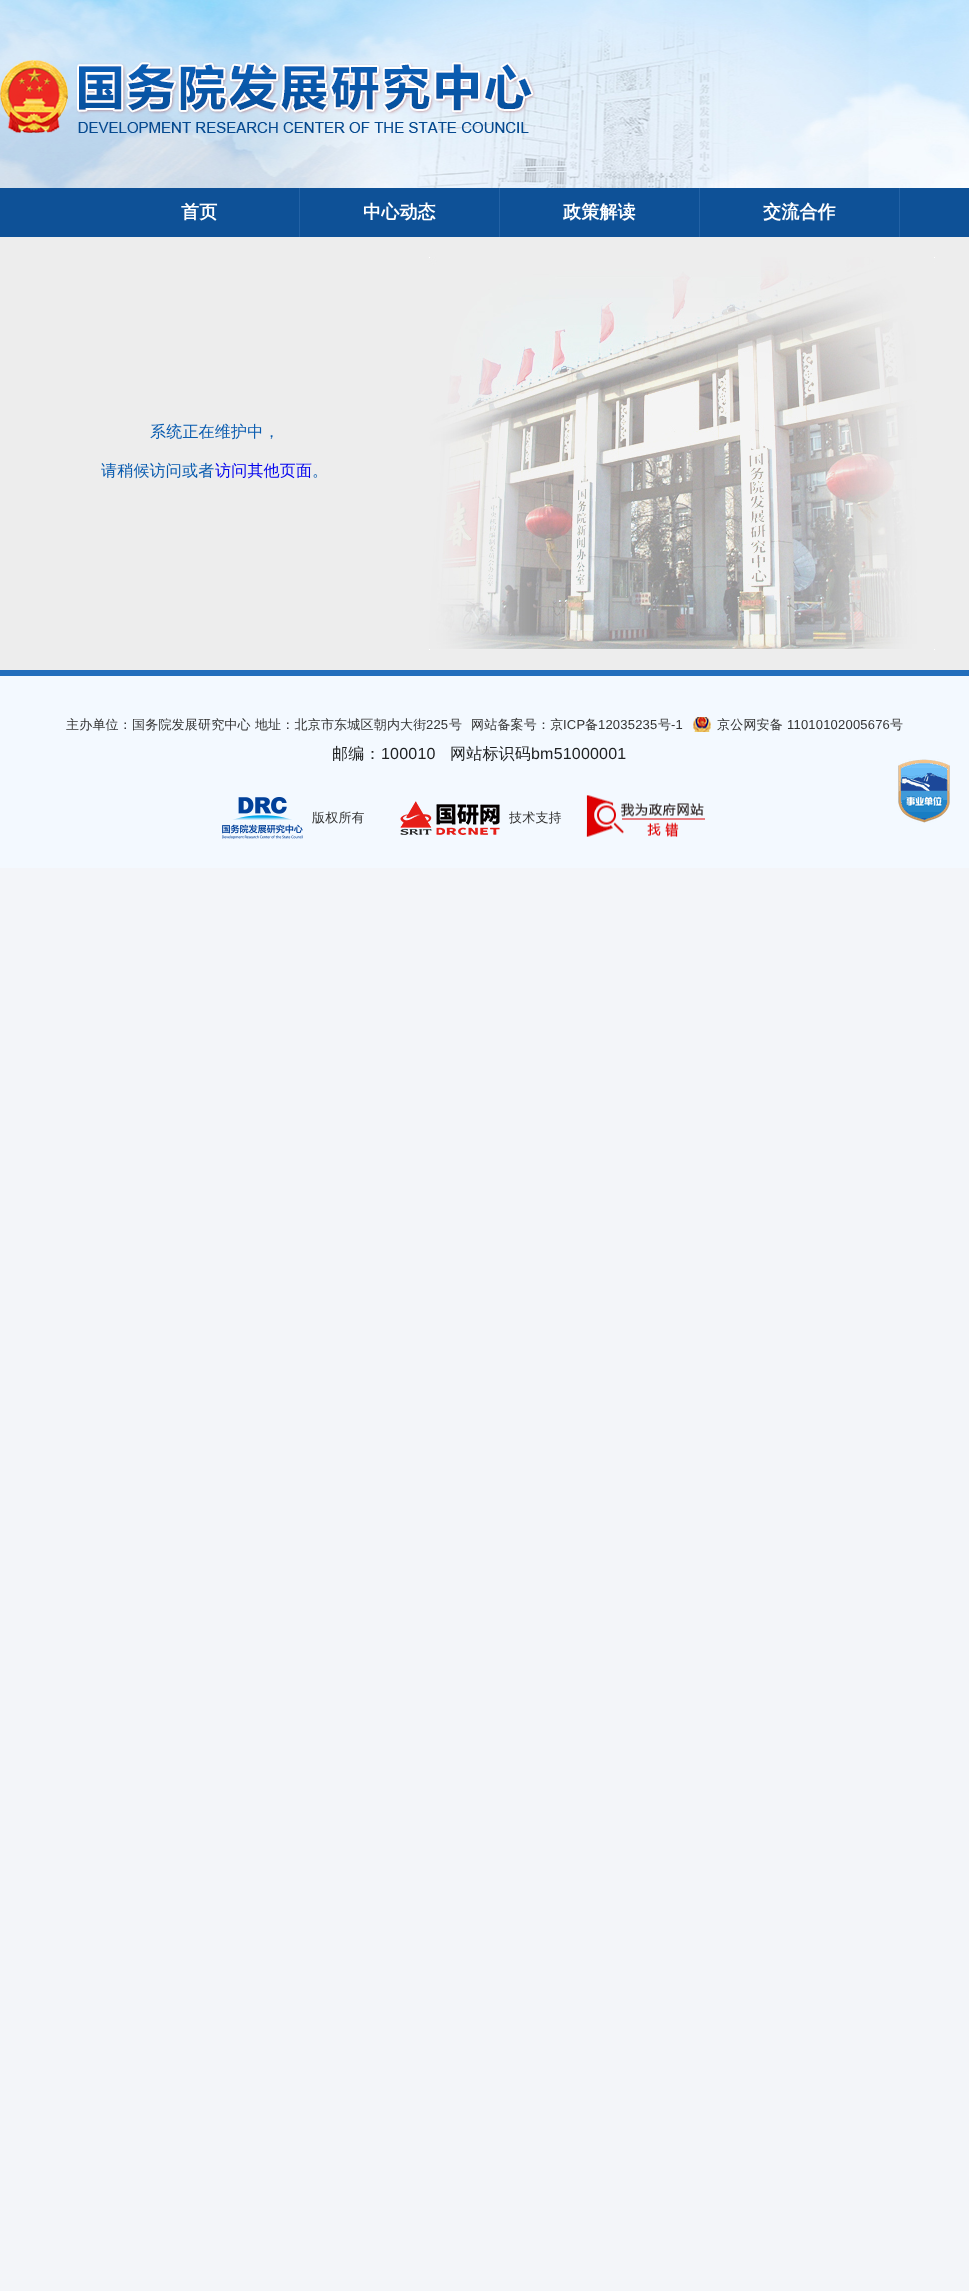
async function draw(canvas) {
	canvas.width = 969;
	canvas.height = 2291;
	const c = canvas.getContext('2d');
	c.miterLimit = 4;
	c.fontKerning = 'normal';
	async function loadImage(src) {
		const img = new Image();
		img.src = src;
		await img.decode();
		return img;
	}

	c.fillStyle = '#f3f5f9';
	c.fillRect(0, 0, 969, 2291);
	c.drawImage(await loadImage('img1.png'), 0, 0, 969, 188);
	c.drawImage(await loadImage('img2.png'), 0, 60, 536, 73);
	c.fillStyle = '#0e5197';
	c.fillRect(0, 188, 969, 49);
	c.fillStyle = '#2262a6';
	c.fillRect(299, 188, 1, 49);
	c.letterSpacing = '0.2px';
	c.font = 'bold 18px WenQuanYi Zen Hei';
	c.fillStyle = '#fff';
	c.fillText('首页', 181, 218);
	c.fillStyle = '#2262a6';
	c.fillRect(499, 188, 1, 49);
	c.fillStyle = '#fff';
	c.fillText('中心动态', 363, 218);
	c.fillStyle = '#2262a6';
	c.fillRect(699, 188, 1, 49);
	c.fillStyle = '#fff';
	c.fillText('政策解读', 563, 218);
	c.fillStyle = '#2262a6';
	c.fillRect(899, 188, 1, 49);
	c.fillStyle = '#fff';
	c.fillText('交流合作', 763, 218);
	c.fillStyle = '#ededed';
	c.fillRect(0, 237, 969, 433);
	c.font = '500 16px WenQuanYi Zen Hei';
	c.fillStyle = '#095baf';
	c.fillText('系统正在维护中，', 150, 437);
	c.fillText('请稍候访问或者', 101, 476);
	c.fillStyle = '#00e';
	c.fillText('访问其他页面', 215, 476);
	c.fillStyle = '#095baf';
	c.fillText('。', 312, 476);
	c.drawImage(await loadImage('img3.png'), 429, 257, 506, 393);
	c.fillStyle = '#f3f9ff';
	c.fillRect(0, 676, 969, 192);
	c.fillStyle = '#226ebc';
	c.fillRect(0, 670, 969, 6);
	c.font = '500 13px WenQuanYi Zen Hei';
	c.fillStyle = '#333';
	c.fillText('主办单位：国务院发展研究中心 地址：北京市东城区朝内大街', 66, 729);
	c.font = '13px Liberation Sans';
	c.fillText('225', 426, 729);
	c.font = '500 13px WenQuanYi Zen Hei';
	c.fillText('号', 449, 729);
	c.fillText('网站备案号：京', 471, 729);
	c.font = '13px Liberation Sans';
	c.fillText('ICP', 563, 729);
	c.font = '500 13px WenQuanYi Zen Hei';
	c.fillText('备', 585, 729);
	c.font = '13px Liberation Sans';
	c.fillText('12035235', 598, 729);
	c.font = '500 13px WenQuanYi Zen Hei';
	c.fillText('号', 658, 729);
	c.font = '13px Liberation Sans';
	c.fillText('-1', 671, 729);
	c.drawImage(await loadImage('img4.png'), 693, 717, 18, 15);
	c.font = '500 13px WenQuanYi Zen Hei';
	c.fillText('京公网安备', 717, 729);
	c.font = '13px Liberation Sans';
	c.fillText('11010102005676', 787, 729);
	c.font = '500 13px WenQuanYi Zen Hei';
	c.fillText('号', 890, 729);
	c.font = '500 16px WenQuanYi Zen Hei';
	c.fillStyle = '#202223';
	c.fillText('邮编：', 332, 759);
	c.font = '16px Liberation Sans';
	c.fillText('100010', 381, 759);
	c.font = '500 16px WenQuanYi Zen Hei';
	c.fillText('网站标识码', 450, 759);
	c.font = '16px Liberation Sans';
	c.fillText('bm51000001', 531, 759);
	c.drawImage(await loadImage('img5.png'), 222, 797, 81, 42);
	c.font = '500 13px WenQuanYi Zen Hei';
	c.fillStyle = '#333';
	c.fillText('版权所有', 312, 822);
	c.drawImage(await loadImage('img6.png'), 400, 801, 100, 34);
	c.fillText('技术支持', 509, 822);
	c.drawImage(await loadImage('img7.png'), 586, 795, 119, 42);
	c.drawImage(await loadImage('img8.png'), 898, 759, 52, 64);
}

draw(document.querySelector('canvas'));
